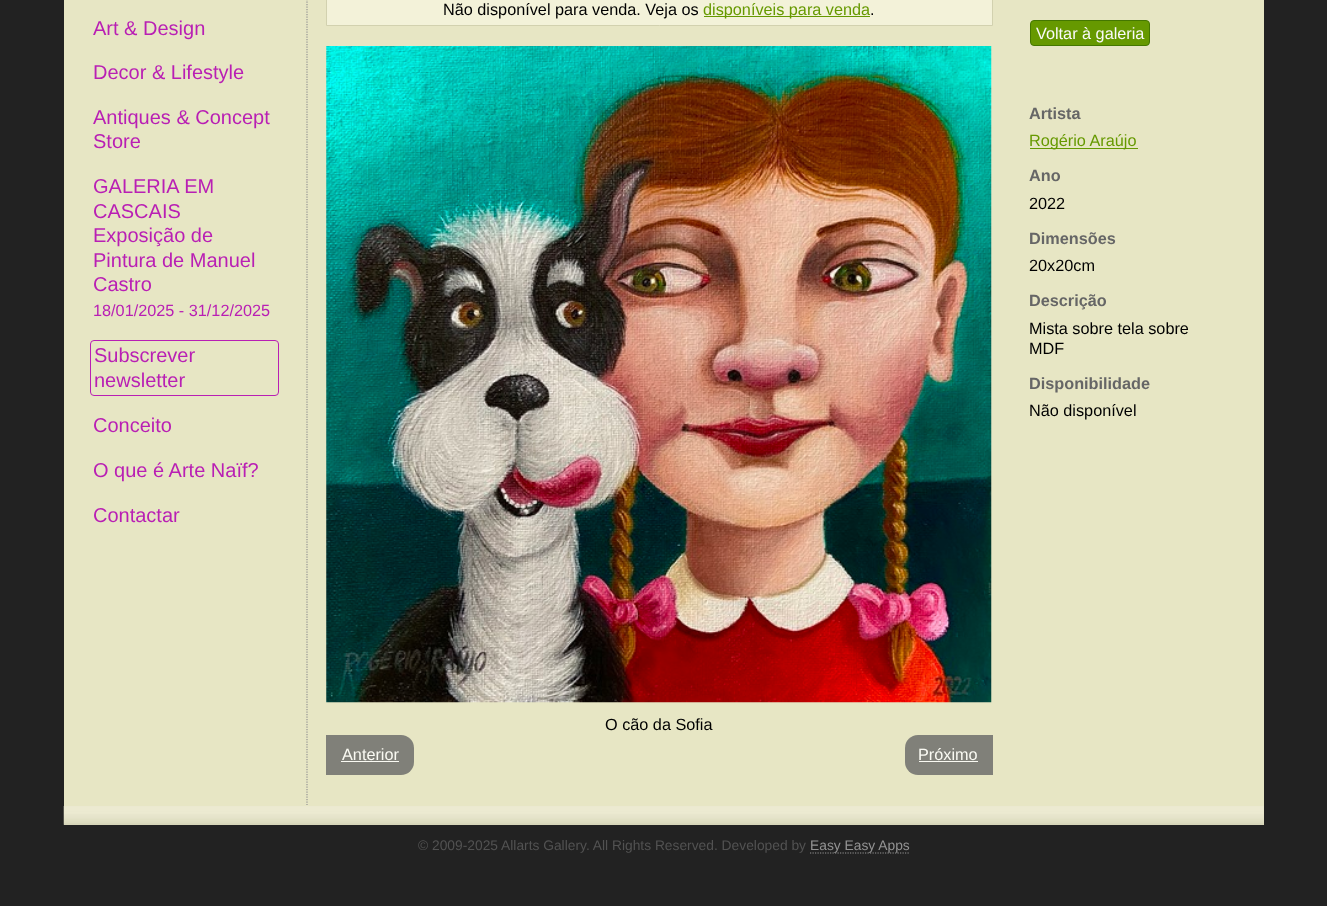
async function draw(canvas) {
	canvas.width = 1327;
	canvas.height = 906;
	const c = canvas.getContext('2d');
	c.miterLimit = 4;
	c.fontKerning = 'normal';
	async function loadImage(src) {
		const img = new Image();
		img.src = src;
		await img.decode();
		return img;
	}

	c.fillStyle = '#222';
	c.fillRect(0, 0, 1327, 906);
	c.fillStyle = '#e7e6c4';
	c.fillRect(64, 0, 1200, 825);
	c.drawImage(await loadImage('img1.png'), 63, 806, 1201, 19);
	c.beginPath();
	c.moveTo(307, -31);
	c.lineTo(307, 805);
	c.strokeStyle = '#939393';
	c.lineWidth = 1.2;
	c.setLineDash([1.25, 1.25]);
	c.stroke();
	c.font = '20px Liberation Sans';
	c.fillStyle = '#b91fb4';
	for (const [text, x, y] of [
		['Art & Design', 93, 35],
		['Decor & Lifestyle', 93, 79],
		['Antiques & Concept', 93, 124],
		['Store', 93, 148],
		['GALERIA EM', 93, 193],
		['CASCAIS', 93, 218],
		['Exposição de', 93, 242],
		['Pintura de Manuel', 93, 267],
		['Castro', 93, 291],
	]) {
		c.fillText(text, x, y);
	}
	c.font = '16.25px Liberation Sans';
	c.fillText('18/01/2025 - 31/12/2025', 93, 316);
	c.beginPath();
	c.roundRect(90.5, 340.5, 188, 55, 3.5);
	c.strokeStyle = '#b91fb4';
	c.lineWidth = 1;
	c.setLineDash([]);
	c.stroke();
	c.font = '20px Liberation Sans';
	for (const [text, x, y] of [
		['Subscrever', 94, 362],
		['newsletter', 94, 387],
		['Conceito', 93, 432],
		['O que é Arte Naïf?', 93, 477],
		['Contactar', 93, 522],
	]) {
		c.fillText(text, x, y);
	}
	c.fillStyle = '#f3f2d9';
	c.beginPath();
	c.rect(326.5, -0.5, 666, 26);
	c.fill();
	c.strokeStyle = '#d2d1af';
	c.stroke();
	c.font = '16.25px Liberation Sans';
	c.fillStyle = '#000';
	c.fillText('Não disponível para venda. Veja os', 443, 15);
	c.fillStyle = '#690';
	c.fillRect(704, 16, 166, 1);
	c.fillText('disponíveis para venda', 703, 15);
	c.fillStyle = '#000';
	c.fillText('.', 870, 15);
	c.drawImage(await loadImage('img2.png'), 326, 46, 666, 657);
	c.fillText('O cão da Sofia', 605, 730);
	c.fillStyle = '#808079';
	c.beginPath();
	c.roundRect(326, 735, 88, 40, [0, 13, 13, 0]);
	c.fill();
	c.fillStyle = '#fafaf3';
	c.fillText('Anterior', 342, 760);
	c.fillRect(341, 761, 58, 1);
	c.fillStyle = '#808079';
	c.beginPath();
	c.roundRect(905, 735, 88, 40, [13, 0, 0, 13]);
	c.fill();
	c.fillStyle = '#fafaf3';
	c.fillText('Próximo', 918, 760);
	c.fillRect(919, 761, 59, 1);
	c.fillStyle = '#690';
	c.beginPath();
	c.roundRect(1030.5, 20.5, 119, 25, 3.5);
	c.fill();
	c.strokeStyle = '#470';
	c.stroke();
	c.fillStyle = '#fafafa';
	c.fillText('Voltar à galeria', 1036, 39);
	c.font = 'bold 16.25px Liberation Sans';
	c.fillStyle = '#666';
	c.fillText('Artista', 1029, 119);
	c.fillStyle = '#690';
	c.fillRect(1030, 148, 108, 1);
	c.font = '16.25px Liberation Sans';
	c.fillText('Rogério Araújo', 1029, 146);
	c.font = 'bold 16.25px Liberation Sans';
	c.fillStyle = '#666';
	c.fillText('Ano', 1029, 181);
	c.font = '16.25px Liberation Sans';
	c.fillStyle = '#000';
	c.fillText('2022', 1029, 209);
	c.font = 'bold 16.25px Liberation Sans';
	c.fillStyle = '#666';
	c.fillText('Dimensões', 1029, 244);
	c.font = '16.25px Liberation Sans';
	c.fillStyle = '#000';
	c.fillText('20x20cm', 1029, 271);
	c.font = 'bold 16.25px Liberation Sans';
	c.fillStyle = '#666';
	c.fillText('Descrição', 1029, 306);
	c.font = '16.25px Liberation Sans';
	c.fillStyle = '#000';
	c.fillText('Mista sobre tela sobre', 1029, 334);
	c.fillText('MDF', 1029, 354);
	c.font = 'bold 16.25px Liberation Sans';
	c.fillStyle = '#666';
	c.fillText('Disponibilidade', 1029, 389);
	c.font = '16.25px Liberation Sans';
	c.fillStyle = '#000';
	c.fillText('Não disponível', 1029, 416);
	c.font = '13.8px Liberation Sans';
	c.fillStyle = '#525252';
	c.fillText('© 2009-2025 Allarts Gallery. All Rights Reserved. Developed by', 418, 850);
	c.beginPath();
	c.moveTo(810, 853);
	c.lineTo(910, 853);
	c.strokeStyle = '#939393';
	c.lineWidth = 1.2;
	c.setLineDash([1.25, 1.25]);
	c.stroke();
	c.fillStyle = '#939393';
	c.fillText('Easy Easy Apps', 810, 850);
}

draw(document.querySelector('canvas'));
